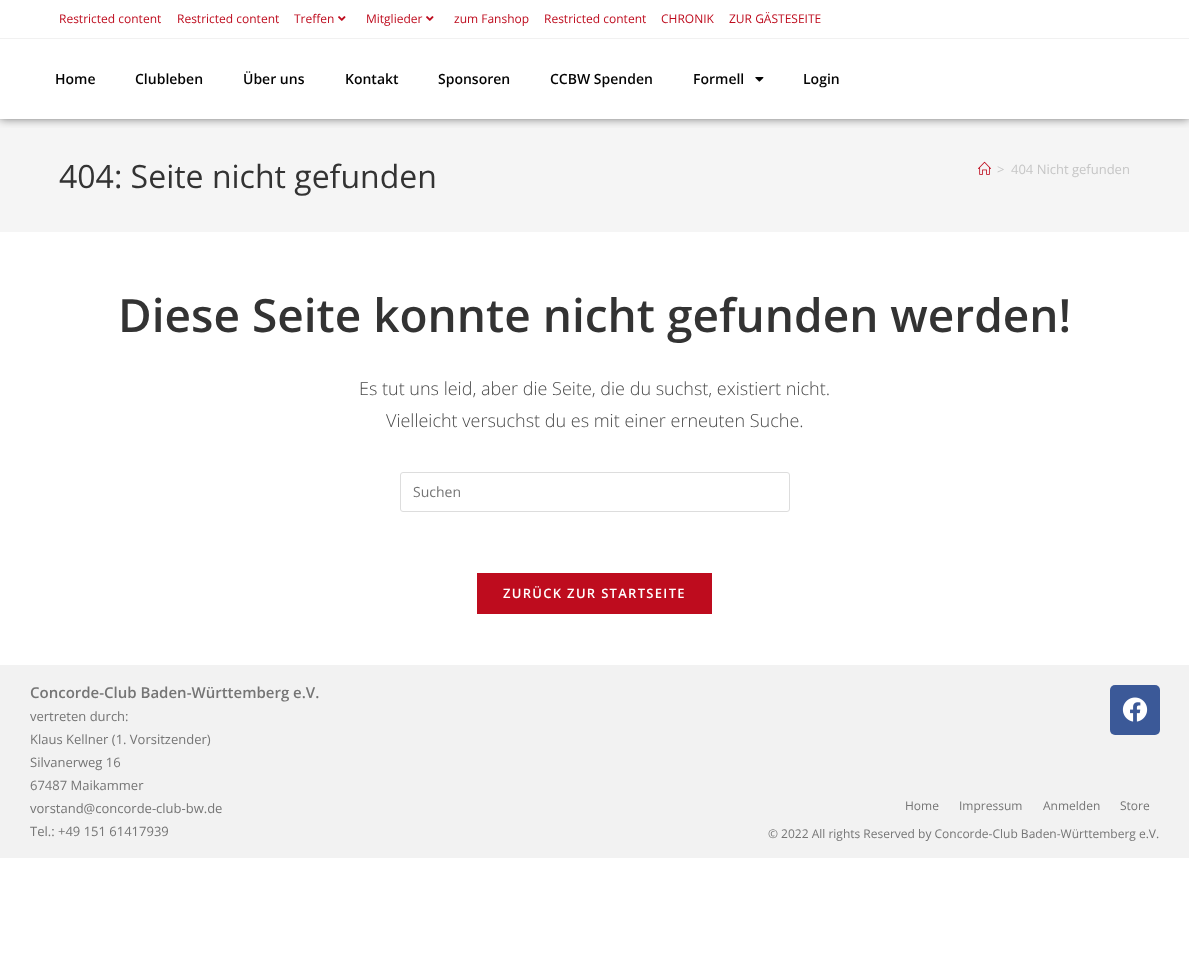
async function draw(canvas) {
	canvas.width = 1189;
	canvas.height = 955;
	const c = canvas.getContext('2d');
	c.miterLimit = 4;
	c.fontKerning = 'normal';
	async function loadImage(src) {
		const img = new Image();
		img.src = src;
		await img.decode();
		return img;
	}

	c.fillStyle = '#fff';
	c.fillRect(0, 0, 1189, 955);
	c.fillStyle = '#f1f1f1';
	c.fillRect(0, 119, 1189, 1);
	c.fillStyle = '#f5f5f5';
	c.fillRect(0, 120, 1189, 112);
	c.save();
	c.beginPath();
	c.rect(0, 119, 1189, 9);
	c.clip();
	c.fillStyle = '#00000080';
	c.filter = 'blur(5px)';
	c.beginPath();
	c.rect(0, 39, 1189, 80);
	c.fill();
	c.filter = 'none';
	c.restore();
	c.fillStyle = '#fff';
	c.fillRect(0, 29, 1189, 9);
	c.fillStyle = '#f1f1f1';
	c.fillRect(0, 38, 1189, 1);
	c.font = '12px Open Sans';
	c.fillStyle = '#be0c1e';
	for (const [text, x, y] of [
		['Restricted content', 59, 23],
		['Restricted content', 177, 23],
		['Treffen', 294, 23],
	]) {
		c.fillText(text, x, y);
	}
	c.drawImage(await loadImage('img1.png'), 338, 16, 8, 5);
	c.fillText('Mitglieder', 366, 23);
	c.drawImage(await loadImage('img1.png'), 426, 16, 8, 5);
	for (const [text, x, y] of [
		['zum Fanshop', 454, 23],
		['Restricted content', 544, 23],
		['CHRONIK', 661, 23],
		['ZUR GÄSTESEITE', 729, 23],
	]) {
		c.fillText(text, x, y);
	}
	c.font = '600 14px Open Sans';
	c.fillStyle = '#030303';
	for (const [text, x, y] of [
		['Home', 55, 84],
		['Clubleben', 135, 84],
		['Über uns', 243, 84],
		['Kontakt', 345, 84],
		['Sponsoren', 438, 84],
		['CCBW Spenden', 550, 84],
		['Formell', 693, 84],
	]) {
		c.fillText(text, x, y);
	}
	c.drawImage(await loadImage('img2.png'), 755, 77, 9, 5);
	c.fillText('Login', 803, 84);
	c.font = '32px Open Sans';
	c.fillStyle = '#333';
	c.fillText('404: Seite nicht gefunden', 59, 188);
	c.drawImage(await loadImage('img3.png'), 978, 161, 13, 14);
	c.font = '13px Open Sans';
	c.fillStyle = '#c6c6c6';
	c.fillText('>', 997, 174);
	c.fillText('404 Nicht gefunden', 1011, 174);
	c.font = '600 46px Open Sans';
	c.fillStyle = '#333';
	c.fillText('Diese Seite konnte nicht gefunden werden!', 118, 332);
	c.font = '300 18px Open Sans';
	c.fillStyle = '#4a4a4a';
	c.fillText('Es tut uns leid, aber die Seite, die du suchst, existiert nicht.', 359, 395);
	c.fillText('Vielleicht versuchst du es mit einer erneuten Suche.', 386, 427);
	c.beginPath();
	c.roundRect(400.5, 472.5, 389, 39, 2.5);
	c.strokeStyle = '#ddd';
	c.stroke();
	c.font = '14px Open Sans';
	c.fillStyle = '#757575';
	c.fillText('Suchen', 413, 497);
	c.fillStyle = '#be0c1e';
	c.fillRect(477, 573, 235, 41);
	c.letterSpacing = '1.3px';
	c.font = '600 13px Open Sans';
	c.fillStyle = '#fff';
	c.fillText('ZURÜCK ZUR STARTSEITE', 503, 598);
	c.fillStyle = '#f2f2f2';
	c.fillRect(0, 665, 1189, 193);
	c.letterSpacing = '0px';
	c.font = '600 15px Open Sans';
	c.fillStyle = '#757575';
	c.fillText('Concorde-Club Baden-Württemberg e.V.', 30, 698);
	c.font = '13px Open Sans';
	for (const [text, x, y] of [
		['vertreten durch:', 30, 721],
		['Klaus Kellner (1. Vorsitzender)', 30, 744],
		['Silvanerweg 16', 30, 767],
		['67487 Maikammer', 30, 790],
		['vorstand@concorde-club-bw.de', 30, 813],
		['Tel.: +49 151 61417939', 30, 836],
	]) {
		c.fillText(text, x, y);
	}
	c.fillStyle = '#3b5998';
	c.beginPath();
	c.roundRect(1110, 685, 50, 50, 5);
	c.fill();
	c.drawImage(await loadImage('img4.png'), 1122, 697, 26, 25);
	c.font = '12px Open Sans';
	c.fillStyle = '#757575';
	for (const [text, x, y] of [
		['Home', 905, 810],
		['Impressum', 959, 810],
		['Anmelden', 1043, 810],
		['Store', 1120, 810],
		['© 2022 All rights Reserved by Concorde-Club Baden-Württemberg e.V.', 768, 838],
	]) {
		c.fillText(text, x, y);
	}
}

draw(document.querySelector('canvas'));
